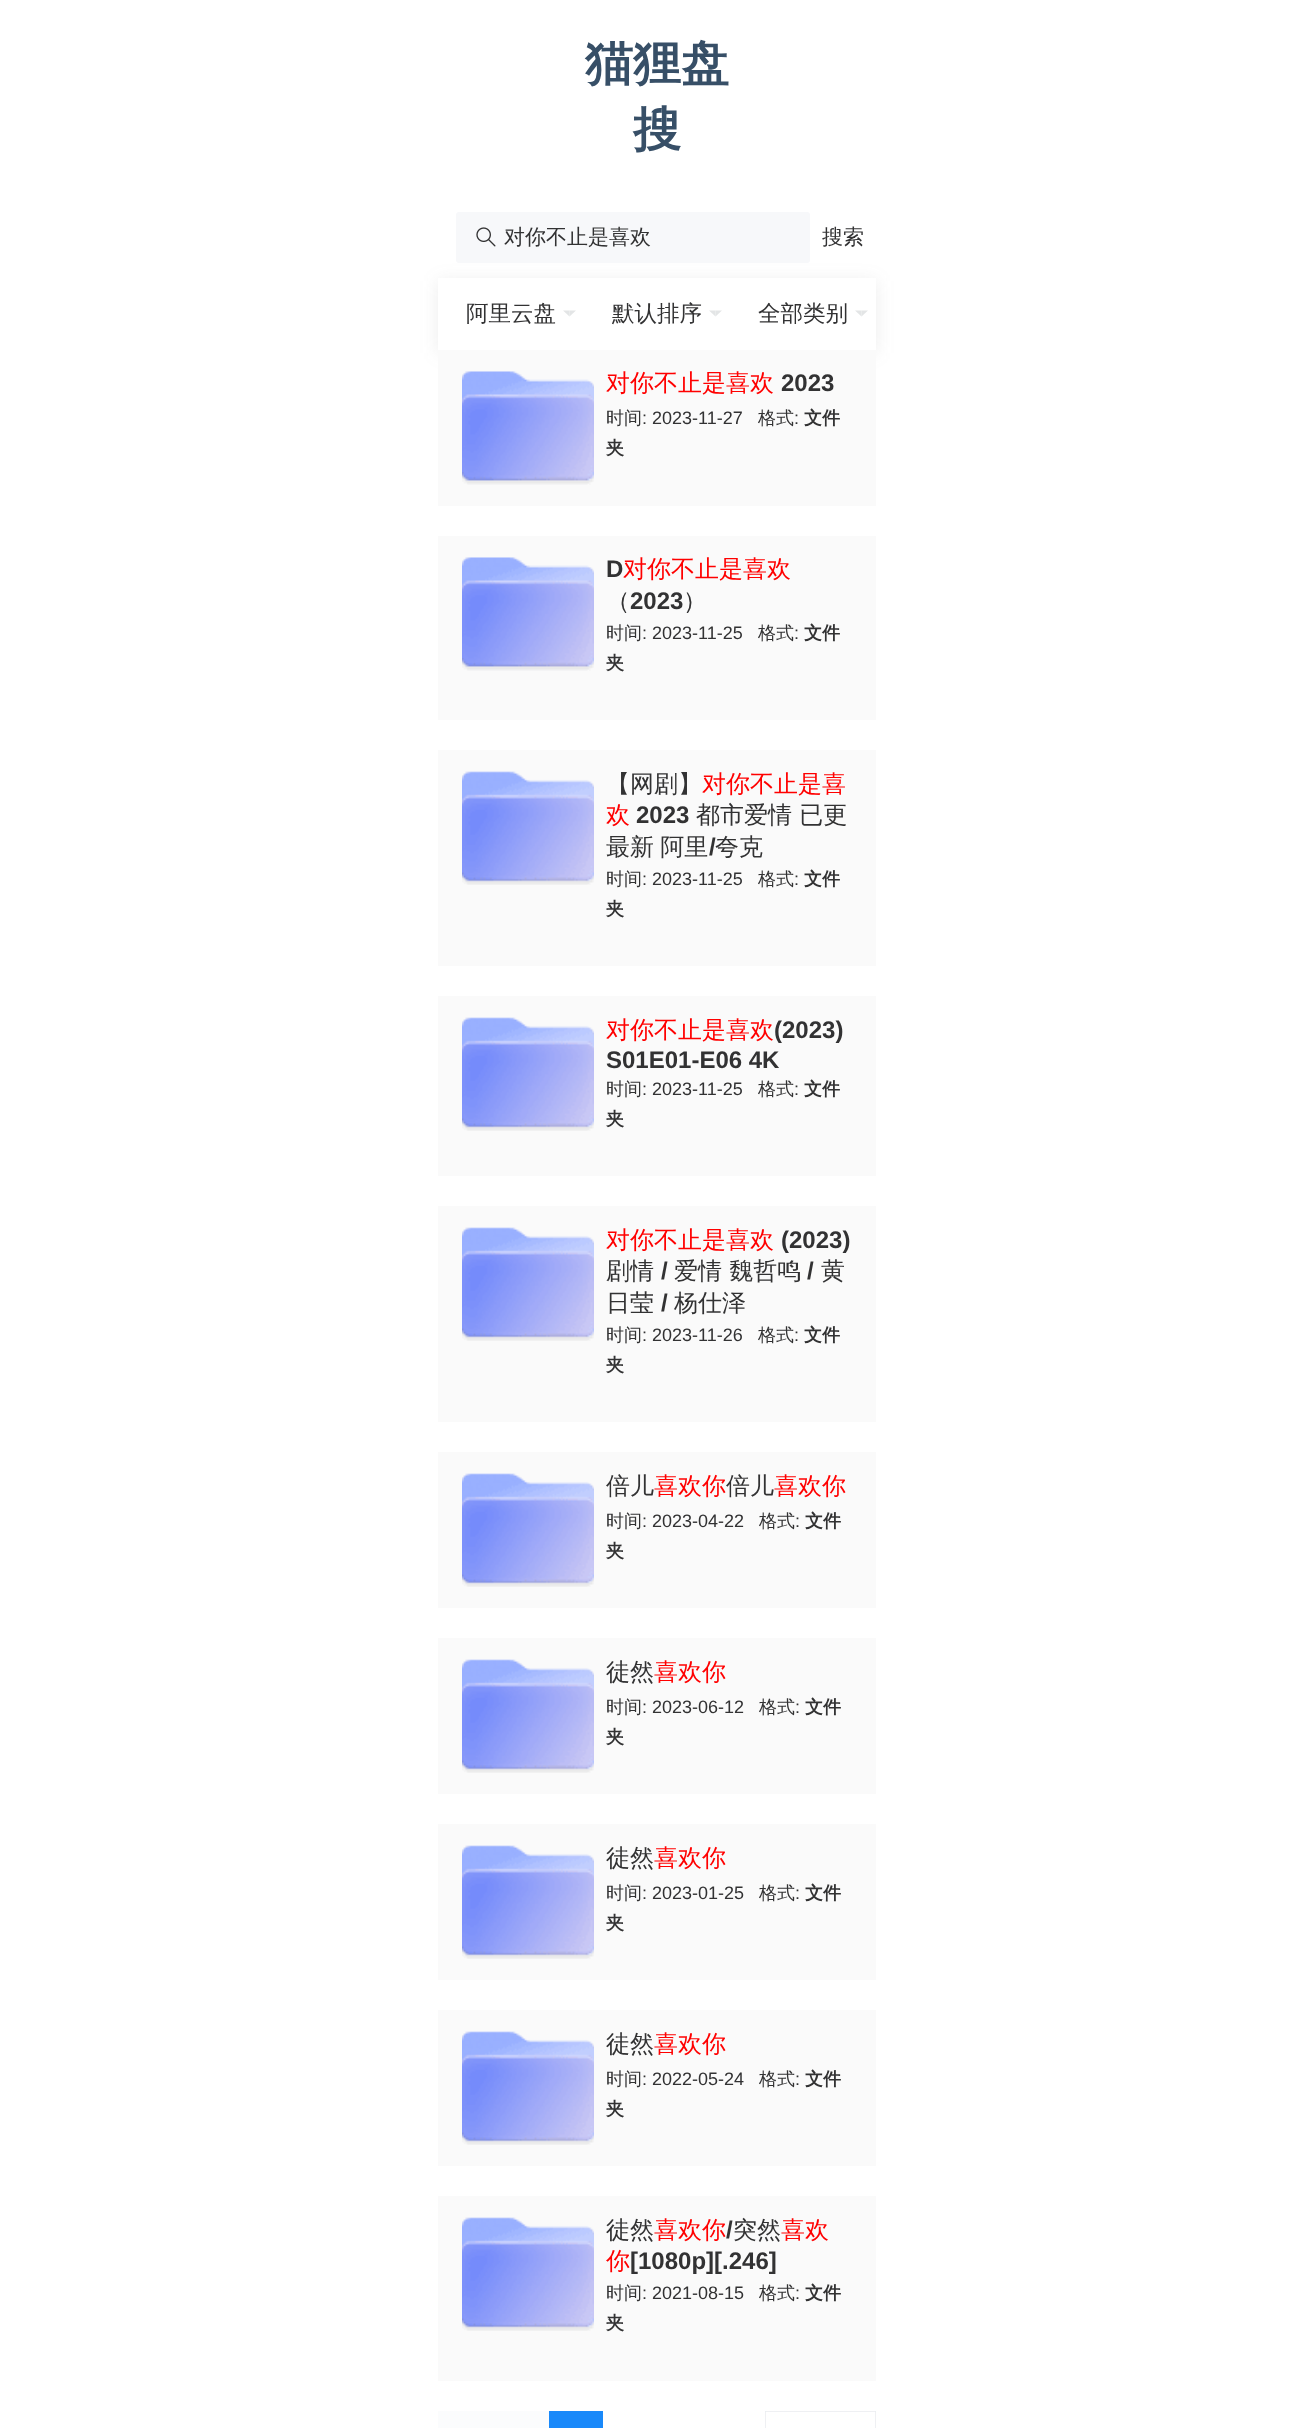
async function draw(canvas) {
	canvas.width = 1313;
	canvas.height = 2428;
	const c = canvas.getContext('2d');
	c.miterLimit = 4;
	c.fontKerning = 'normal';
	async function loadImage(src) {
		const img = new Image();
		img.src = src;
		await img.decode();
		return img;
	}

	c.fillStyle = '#fff';
	c.fillRect(0, 0, 1313, 2428);
	c.font = 'bold 48px WenQuanYi Zen Hei';
	c.fillStyle = '#374f67';
	c.fillText('猫狸盘', 585, 80);
	c.fillText('搜', 633, 146);
	c.fillStyle = '#f7f8fa';
	c.beginPath();
	c.roundRect(456, 212, 354, 51, 3);
	c.fill();
	c.drawImage(await loadImage('img1.png'), 476, 227, 20, 20);
	c.font = '500 21px WenQuanYi Zen Hei';
	c.fillStyle = '#323233';
	c.fillText('对你不止是喜欢', 504, 244);
	c.fillText('搜索', 822, 244);
	c.fillStyle = '#6465661f';
	c.filter = 'blur(9px)';
	c.beginPath();
	c.rect(438, 281, 438, 72);
	c.fill();
	c.filter = 'none';
	c.fillStyle = '#fff';
	c.fillRect(438, 278, 438, 72);
	c.font = '500 22.5px WenQuanYi Zen Hei';
	c.fillStyle = '#323233';
	c.fillText('阿里云盘', 466, 321);
	c.fillStyle = '#e3e5e6';
	c.beginPath();
	c.moveTo(576, 310.5);
	c.lineTo(569.5, 316.5);
	c.lineTo(569.5, 310.5);
	c.closePath();
	c.fill();
	c.beginPath();
	c.moveTo(569.5, 316.5);
	c.lineTo(563, 310.5);
	c.lineTo(569.5, 310.5);
	c.closePath();
	c.fill();
	c.fillStyle = '#323233';
	c.fillText('默认排序', 612, 321);
	c.fillStyle = '#e3e5e6';
	c.beginPath();
	c.moveTo(722, 310.5);
	c.lineTo(715.5, 316.5);
	c.lineTo(715.5, 310.5);
	c.closePath();
	c.fill();
	c.beginPath();
	c.moveTo(715.5, 316.5);
	c.lineTo(709, 310.5);
	c.lineTo(715.5, 310.5);
	c.closePath();
	c.fill();
	c.fillStyle = '#323233';
	c.fillText('全部类别', 758, 321);
	c.fillStyle = '#e3e5e6';
	c.beginPath();
	c.moveTo(868, 310.5);
	c.lineTo(861.5, 316.5);
	c.lineTo(861.5, 310.5);
	c.closePath();
	c.fill();
	c.beginPath();
	c.moveTo(861.5, 316.5);
	c.lineTo(855, 310.5);
	c.lineTo(861.5, 310.5);
	c.closePath();
	c.fill();
	c.fillStyle = '#fafafa';
	c.fillRect(438, 350, 438, 156);
	c.drawImage(await loadImage('img2.png'), 462, 371, 132, 114);
	c.font = '500 24px WenQuanYi Zen Hei';
	c.fillStyle = '#f00';
	c.fillText('对你不止是喜欢', 606, 391);
	c.font = 'bold 24px Liberation Sans';
	c.fillStyle = '#323233';
	c.fillText('2023', 781, 391);
	c.font = '500 18px WenQuanYi Zen Hei';
	c.fillText('时间', 606, 424);
	c.font = '18px Liberation Sans';
	c.fillText(': 2023-11-27', 642, 424);
	c.font = '500 18px WenQuanYi Zen Hei';
	c.fillText('格式', 758, 424);
	c.font = '18px Liberation Sans';
	c.fillText(':', 794, 424);
	c.font = 'bold 18px WenQuanYi Zen Hei';
	c.fillText('文件', 804, 424);
	c.fillText('夹', 606, 454);
	c.fillStyle = '#fafafa';
	c.fillRect(438, 536, 438, 184);
	c.drawImage(await loadImage('img2.png'), 462, 557, 132, 114);
	c.font = 'bold 24px Liberation Sans';
	c.fillStyle = '#323233';
	c.fillText('D', 606, 577);
	c.font = '500 24px WenQuanYi Zen Hei';
	c.fillStyle = '#f00';
	c.fillText('对你不止是喜欢', 623, 577);
	c.fillStyle = '#323233';
	c.fillText('（', 606, 609);
	c.font = 'bold 24px Liberation Sans';
	c.fillText('2023', 630, 609);
	c.font = '500 24px WenQuanYi Zen Hei';
	c.fillText('）', 683, 609);
	c.font = '500 18px WenQuanYi Zen Hei';
	c.fillText('时间', 606, 639);
	c.font = '18px Liberation Sans';
	c.fillText(': 2023-11-25', 642, 639);
	c.font = '500 18px WenQuanYi Zen Hei';
	c.fillText('格式', 758, 639);
	c.font = '18px Liberation Sans';
	c.fillText(':', 794, 639);
	c.font = 'bold 18px WenQuanYi Zen Hei';
	c.fillText('文件', 804, 639);
	c.fillText('夹', 606, 669);
	c.fillStyle = '#fafafa';
	c.fillRect(438, 750, 438, 216);
	c.drawImage(await loadImage('img3.png'), 462, 771, 132, 114);
	c.font = '500 24px WenQuanYi Zen Hei';
	c.fillStyle = '#323233';
	c.fillText('【网剧】', 606, 792);
	c.fillStyle = '#f00';
	c.fillText('对你不止是喜', 702, 792);
	c.fillText('欢', 606, 823);
	c.font = 'bold 24px Liberation Sans';
	c.fillStyle = '#323233';
	c.fillText('2023', 636, 823);
	c.font = '500 24px WenQuanYi Zen Hei';
	c.fillText('都市爱情 已更', 696, 823);
	c.wordSpacing = '-1px';
	c.fillText('最新 阿里', 606, 855);
	c.wordSpacing = '0px';
	c.font = 'bold 24px Liberation Sans';
	c.fillText('/', 709, 855);
	c.font = '500 24px WenQuanYi Zen Hei';
	c.fillText('夸克', 715, 855);
	c.font = '500 18px WenQuanYi Zen Hei';
	c.fillText('时间', 606, 885);
	c.font = '18px Liberation Sans';
	c.fillText(': 2023-11-25', 642, 885);
	c.font = '500 18px WenQuanYi Zen Hei';
	c.fillText('格式', 758, 885);
	c.font = '18px Liberation Sans';
	c.fillText(':', 794, 885);
	c.font = 'bold 18px WenQuanYi Zen Hei';
	c.fillText('文件', 804, 885);
	c.fillText('夹', 606, 915);
	c.fillStyle = '#fafafa';
	c.fillRect(438, 996, 438, 180);
	c.drawImage(await loadImage('img4.png'), 462, 1017, 132, 114);
	c.font = '500 24px WenQuanYi Zen Hei';
	c.fillStyle = '#f00';
	c.fillText('对你不止是喜欢', 606, 1038);
	c.font = 'bold 24px Liberation Sans';
	c.fillStyle = '#323233';
	c.fillText('(2023)', 774, 1038);
	c.fillText('S01E01-E06 4K', 606, 1068);
	c.font = '500 18px WenQuanYi Zen Hei';
	c.fillText('时间', 606, 1095);
	c.font = '18px Liberation Sans';
	c.fillText(': 2023-11-25', 642, 1095);
	c.font = '500 18px WenQuanYi Zen Hei';
	c.fillText('格式', 758, 1095);
	c.font = '18px Liberation Sans';
	c.fillText(':', 794, 1095);
	c.font = 'bold 18px WenQuanYi Zen Hei';
	c.fillText('文件', 804, 1095);
	c.fillText('夹', 606, 1125);
	c.fillStyle = '#fafafa';
	c.fillRect(438, 1206, 438, 216);
	c.drawImage(await loadImage('img5.png'), 462, 1227, 132, 114);
	c.font = '500 24px WenQuanYi Zen Hei';
	c.fillStyle = '#f00';
	c.fillText('对你不止是喜欢', 606, 1248);
	c.font = 'bold 24px Liberation Sans';
	c.fillStyle = '#323233';
	c.fillText('(2023)', 781, 1248);
	c.font = '500 24px WenQuanYi Zen Hei';
	c.fillText('剧情', 606, 1279);
	c.font = 'bold 24px Liberation Sans';
	c.fillText('/', 661, 1279);
	c.font = '500 24px WenQuanYi Zen Hei';
	c.fillText('爱情 魏哲鸣', 674, 1279);
	c.font = 'bold 24px Liberation Sans';
	c.fillText('/', 807, 1279);
	c.font = '500 24px WenQuanYi Zen Hei';
	c.fillText('黄', 821, 1279);
	c.fillText('日莹', 606, 1311);
	c.font = 'bold 24px Liberation Sans';
	c.fillText('/', 661, 1311);
	c.font = '500 24px WenQuanYi Zen Hei';
	c.fillText('杨仕泽', 674, 1311);
	c.font = '500 18px WenQuanYi Zen Hei';
	c.fillText('时间', 606, 1341);
	c.font = '18px Liberation Sans';
	c.fillText(': 2023-11-26', 642, 1341);
	c.font = '500 18px WenQuanYi Zen Hei';
	c.fillText('格式', 758, 1341);
	c.font = '18px Liberation Sans';
	c.fillText(':', 794, 1341);
	c.font = 'bold 18px WenQuanYi Zen Hei';
	c.fillText('文件', 804, 1341);
	c.fillText('夹', 606, 1371);
	c.fillStyle = '#fafafa';
	c.fillRect(438, 1452, 438, 156);
	c.drawImage(await loadImage('img6.png'), 462, 1473, 132, 114);
	c.font = '500 24px WenQuanYi Zen Hei';
	c.fillStyle = '#323233';
	c.fillText('倍儿', 606, 1494);
	c.fillStyle = '#f00';
	c.fillText('喜欢你', 654, 1494);
	c.fillStyle = '#323233';
	c.fillText('倍儿', 726, 1494);
	c.fillStyle = '#f00';
	c.fillText('喜欢你', 774, 1494);
	c.font = '500 18px WenQuanYi Zen Hei';
	c.fillStyle = '#323233';
	c.fillText('时间', 606, 1527);
	c.font = '18px Liberation Sans';
	c.fillText(': 2023-04-22', 642, 1527);
	c.font = '500 18px WenQuanYi Zen Hei';
	c.fillText('格式', 759, 1527);
	c.font = '18px Liberation Sans';
	c.fillText(':', 795, 1527);
	c.font = 'bold 18px WenQuanYi Zen Hei';
	c.fillText('文件', 805, 1527);
	c.fillText('夹', 606, 1557);
	c.fillStyle = '#fafafa';
	c.fillRect(438, 1638, 438, 156);
	c.drawImage(await loadImage('img7.png'), 462, 1659, 132, 114);
	c.font = '500 24px WenQuanYi Zen Hei';
	c.fillStyle = '#323233';
	c.fillText('徒然', 606, 1680);
	c.fillStyle = '#f00';
	c.fillText('喜欢你', 654, 1680);
	c.font = '500 18px WenQuanYi Zen Hei';
	c.fillStyle = '#323233';
	c.fillText('时间', 606, 1713);
	c.font = '18px Liberation Sans';
	c.fillText(': 2023-06-12', 642, 1713);
	c.font = '500 18px WenQuanYi Zen Hei';
	c.fillText('格式', 759, 1713);
	c.font = '18px Liberation Sans';
	c.fillText(':', 795, 1713);
	c.font = 'bold 18px WenQuanYi Zen Hei';
	c.fillText('文件', 805, 1713);
	c.fillText('夹', 606, 1743);
	c.fillStyle = '#fafafa';
	c.fillRect(438, 1824, 438, 156);
	c.drawImage(await loadImage('img8.png'), 462, 1845, 132, 114);
	c.font = '500 24px WenQuanYi Zen Hei';
	c.fillStyle = '#323233';
	c.fillText('徒然', 606, 1866);
	c.fillStyle = '#f00';
	c.fillText('喜欢你', 654, 1866);
	c.font = '500 18px WenQuanYi Zen Hei';
	c.fillStyle = '#323233';
	c.fillText('时间', 606, 1899);
	c.font = '18px Liberation Sans';
	c.fillText(': 2023-01-25', 642, 1899);
	c.font = '500 18px WenQuanYi Zen Hei';
	c.fillText('格式', 759, 1899);
	c.font = '18px Liberation Sans';
	c.fillText(':', 795, 1899);
	c.font = 'bold 18px WenQuanYi Zen Hei';
	c.fillText('文件', 805, 1899);
	c.fillText('夹', 606, 1929);
	c.fillStyle = '#fafafa';
	c.fillRect(438, 2010, 438, 156);
	c.drawImage(await loadImage('img3.png'), 462, 2031, 132, 114);
	c.font = '500 24px WenQuanYi Zen Hei';
	c.fillStyle = '#323233';
	c.fillText('徒然', 606, 2052);
	c.fillStyle = '#f00';
	c.fillText('喜欢你', 654, 2052);
	c.font = '500 18px WenQuanYi Zen Hei';
	c.fillStyle = '#323233';
	c.fillText('时间', 606, 2085);
	c.font = '18px Liberation Sans';
	c.fillText(': 2022-05-24', 642, 2085);
	c.font = '500 18px WenQuanYi Zen Hei';
	c.fillText('格式', 759, 2085);
	c.font = '18px Liberation Sans';
	c.fillText(':', 795, 2085);
	c.font = 'bold 18px WenQuanYi Zen Hei';
	c.fillText('文件', 805, 2085);
	c.fillText('夹', 606, 2115);
	c.fillStyle = '#fafafa';
	c.fillRect(438, 2196, 438, 185);
	c.drawImage(await loadImage('img7.png'), 462, 2217, 132, 114);
	c.font = '500 24px WenQuanYi Zen Hei';
	c.fillStyle = '#323233';
	c.fillText('徒然', 606, 2238);
	c.fillStyle = '#f00';
	c.fillText('喜欢你', 654, 2238);
	c.font = 'bold 24px Liberation Sans';
	c.fillStyle = '#323233';
	c.fillText('/', 726, 2238);
	c.font = '500 24px WenQuanYi Zen Hei';
	c.fillText('突然', 733, 2238);
	c.fillStyle = '#f00';
	c.fillText('喜欢', 781, 2238);
	c.fillText('你', 606, 2269);
	c.font = 'bold 24px Liberation Sans';
	c.fillStyle = '#323233';
	c.fillText('[1080p][.246]', 630, 2269);
	c.font = '500 18px WenQuanYi Zen Hei';
	c.fillText('时间', 606, 2299);
	c.font = '18px Liberation Sans';
	c.fillText(': 2021-08-15', 642, 2299);
	c.font = '500 18px WenQuanYi Zen Hei';
	c.fillText('格式', 759, 2299);
	c.font = '18px Liberation Sans';
	c.fillText(':', 795, 2299);
	c.font = 'bold 18px WenQuanYi Zen Hei';
	c.fillText('文件', 805, 2299);
	c.fillText('夹', 606, 2329);
	c.fillStyle = '#fbfcfd';
	c.fillRect(438, 2411, 111, 17);
	c.fillStyle = '#1989fa';
	c.fillRect(549, 2411, 54, 17);
	c.strokeStyle = '#ebedf0';
	c.lineWidth = 0.8;
	c.strokeRect(765.4, 2411.4, 110.2, 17.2);
}

draw(document.querySelector('canvas'));
